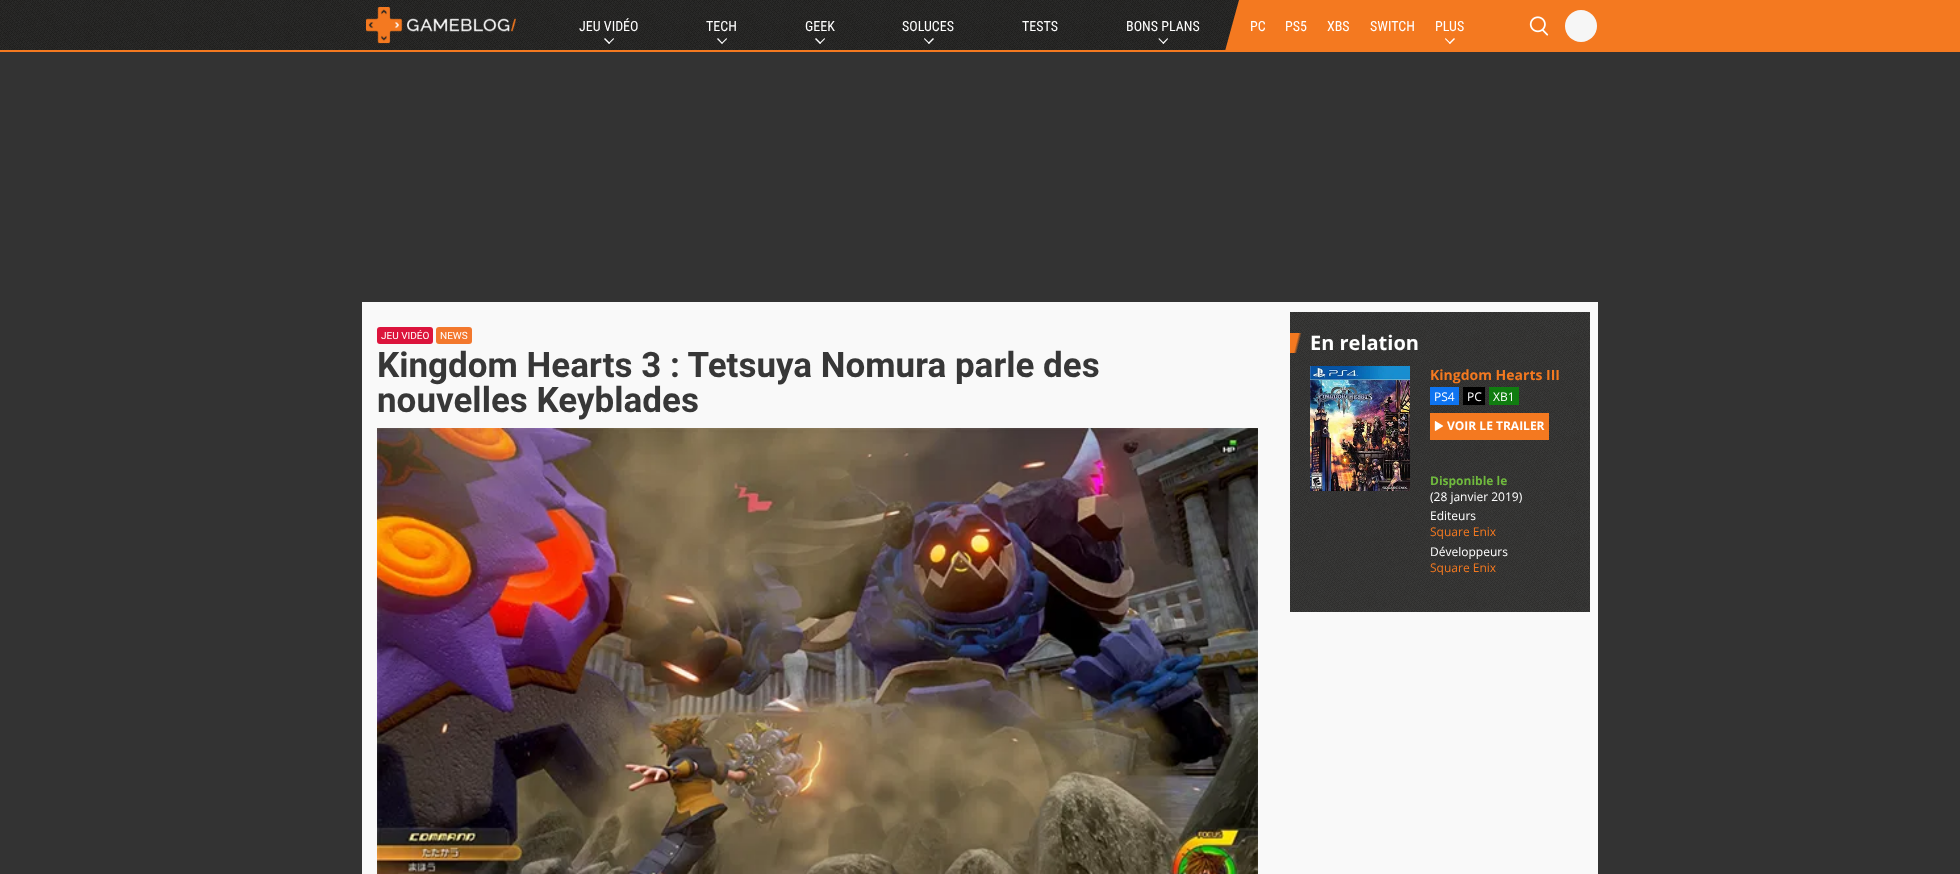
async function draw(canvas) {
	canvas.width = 1960;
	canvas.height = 874;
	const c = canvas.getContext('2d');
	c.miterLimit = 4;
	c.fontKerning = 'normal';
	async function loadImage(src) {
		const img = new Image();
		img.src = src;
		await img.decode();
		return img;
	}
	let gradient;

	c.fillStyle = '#333';
	c.fillRect(0, 0, 1960, 874);
	c.drawImage(await loadImage('img1.png'), 0, 0, 1960, 50);
	c.fillStyle = '#f47920';
	c.fillRect(0, 50, 1960, 2);
	c.drawImage(await loadImage('img2.png'), 366, 7, 150, 37);
	c.font = '14px Roboto Condensed';
	c.fillStyle = '#fff';
	c.fillText('JEU VIDÉO', 579, 31);
	c.beginPath();
	c.moveTo(613.5, 38);
	c.lineTo(614, 39);
	c.lineTo(609, 44);
	c.lineTo(608.5, 43);
	c.closePath();
	c.fill();
	c.beginPath();
	c.moveTo(605, 38);
	c.lineTo(610, 43);
	c.lineTo(609, 44);
	c.lineTo(604, 39);
	c.closePath();
	c.fill();
	c.fillText('TECH', 706, 31);
	c.beginPath();
	c.moveTo(726.5, 38);
	c.lineTo(727, 39);
	c.lineTo(722, 44);
	c.lineTo(721.5, 43);
	c.closePath();
	c.fill();
	c.beginPath();
	c.moveTo(718, 38);
	c.lineTo(722.5, 43);
	c.lineTo(722, 44);
	c.lineTo(717, 39);
	c.closePath();
	c.fill();
	c.fillText('GEEK', 805, 31);
	c.beginPath();
	c.moveTo(824.5, 38);
	c.lineTo(825, 39);
	c.lineTo(820, 44);
	c.lineTo(819.5, 43);
	c.closePath();
	c.fill();
	c.beginPath();
	c.moveTo(816, 38);
	c.lineTo(821, 43);
	c.lineTo(820, 44);
	c.lineTo(815, 39);
	c.closePath();
	c.fill();
	c.fillText('SOLUCES', 902, 31);
	c.beginPath();
	c.moveTo(933, 38);
	c.lineTo(934, 39);
	c.lineTo(929, 44);
	c.lineTo(928, 43);
	c.closePath();
	c.fill();
	c.beginPath();
	c.moveTo(924.5, 38);
	c.lineTo(929.5, 43);
	c.lineTo(929, 44);
	c.lineTo(924, 39);
	c.closePath();
	c.fill();
	c.fillText('TESTS', 1022, 31);
	c.fillText('BONS PLANS', 1126, 31);
	c.beginPath();
	c.moveTo(1167.5, 38);
	c.lineTo(1168, 39);
	c.lineTo(1163.5, 44);
	c.lineTo(1162.5, 43);
	c.closePath();
	c.fill();
	c.beginPath();
	c.moveTo(1159, 38);
	c.lineTo(1164, 43);
	c.lineTo(1163.5, 44);
	c.lineTo(1158.5, 39);
	c.closePath();
	c.fill();
	c.fillStyle = '#f47920';
	c.beginPath();
	c.moveTo(1239, 0);
	c.lineTo(1225, 51);
	c.lineTo(1225, 52);
	c.lineTo(1602, 52);
	c.lineTo(1602, 0);
	c.closePath();
	c.fill();
	c.fillStyle = '#fff';
	for (const [text, x, y] of [
		['PC', 1250, 31],
		['PS5', 1285, 31],
		['XBS', 1327, 31],
		['SWITCH', 1370, 31],
		['PLUS', 1435, 31],
	]) {
		c.fillText(text, x, y);
	}
	c.beginPath();
	c.moveTo(1454, 38);
	c.lineTo(1455, 39);
	c.lineTo(1450, 44);
	c.lineTo(1449, 43);
	c.closePath();
	c.fill();
	c.beginPath();
	c.moveTo(1445.5, 38);
	c.lineTo(1450.5, 43);
	c.lineTo(1450, 44);
	c.lineTo(1445, 39);
	c.closePath();
	c.fill();
	c.drawImage(await loadImage('img3.png'), 1529, 16, 20, 20);
	c.fillStyle = '#f6f6f6';
	c.beginPath();
	c.arc(1581, 26, 16, 0, 2 * Math.PI);
	c.fill();
	c.fillStyle = '#f9f9f9';
	c.fillRect(362, 302, 1236, 572);
	c.fillStyle = '#dc143c';
	c.beginPath();
	c.roundRect(377, 327, 56, 17, 3);
	c.fill();
	c.font = '10px Roboto';
	c.fillStyle = '#fff';
	c.fillText('JEU VIDÉO', 381, 339);
	c.fillStyle = '#f3782d';
	c.beginPath();
	c.roundRect(436, 327, 36, 17, 3);
	c.fill();
	c.fillStyle = '#fff';
	c.fillText('NEWS', 440, 339);
	c.font = 'bold 35px Roboto';
	c.fillStyle = '#373737';
	c.fillText('Kingdom Hearts 3 : Tetsuya Nomura parle des', 377, 377);
	c.fillText('nouvelles Keyblades', 377, 412);
	c.drawImage(await loadImage('img4.png'), 377, 428, 881, 446);
	c.drawImage(await loadImage('img5.png'), 1290, 312, 300, 300);
	gradient = c.createLinearGradient(1296, 307, 1584, 379);
	gradient.addColorStop(0.03, '#f47920');
	gradient.addColorStop(0.04, '#f4792000');
	c.fillStyle = gradient;
	c.fillRect(1290, 333, 12, 20);
	c.font = 'bold 20px Open Sans';
	c.fillStyle = '#fff';
	c.fillText('En relation', 1310, 350);
	c.drawImage(await loadImage('img6.png'), 1310, 366, 100, 125);
	c.font = 'bold 14px Open Sans';
	c.fillStyle = '#f47920';
	c.fillText('Kingdom Hearts III', 1430, 380);
	c.fillStyle = '#0e74f1';
	c.fillRect(1430, 387, 29, 18);
	c.font = '12px Open Sans';
	c.fillStyle = '#fff';
	c.fillText('PS4', 1434, 401);
	c.fillStyle = '#000';
	c.fillRect(1463, 387, 22, 18);
	c.fillStyle = '#fff';
	c.fillText('PC', 1467, 401);
	c.fillStyle = '#107c10';
	c.fillRect(1489, 387, 30, 18);
	c.fillStyle = '#fff';
	c.fillText('XB1', 1493, 401);
	c.fillStyle = '#f47920';
	c.fillRect(1430, 413, 119, 27);
	c.drawImage(await loadImage('img7.png'), 1434, 421, 10, 10);
	c.font = 'bold 12px Open Sans';
	c.fillStyle = '#fff';
	c.fillText('VOIR LE TRAILER', 1447, 430);
	c.fillStyle = '#70ba3e';
	c.fillText('Disponible le', 1430, 485);
	c.font = '12px Open Sans';
	c.fillStyle = '#fff';
	c.fillText('(28 janvier 2019)', 1430, 501);
	c.fillText('Editeurs', 1430, 520);
	c.fillStyle = '#f47920';
	c.fillText('Square Enix', 1430, 536);
	c.fillStyle = '#fff';
	c.fillText('Développeurs', 1430, 556);
	c.fillStyle = '#f47920';
	c.fillText('Square Enix', 1430, 572);
}

draw(document.querySelector('canvas'));
